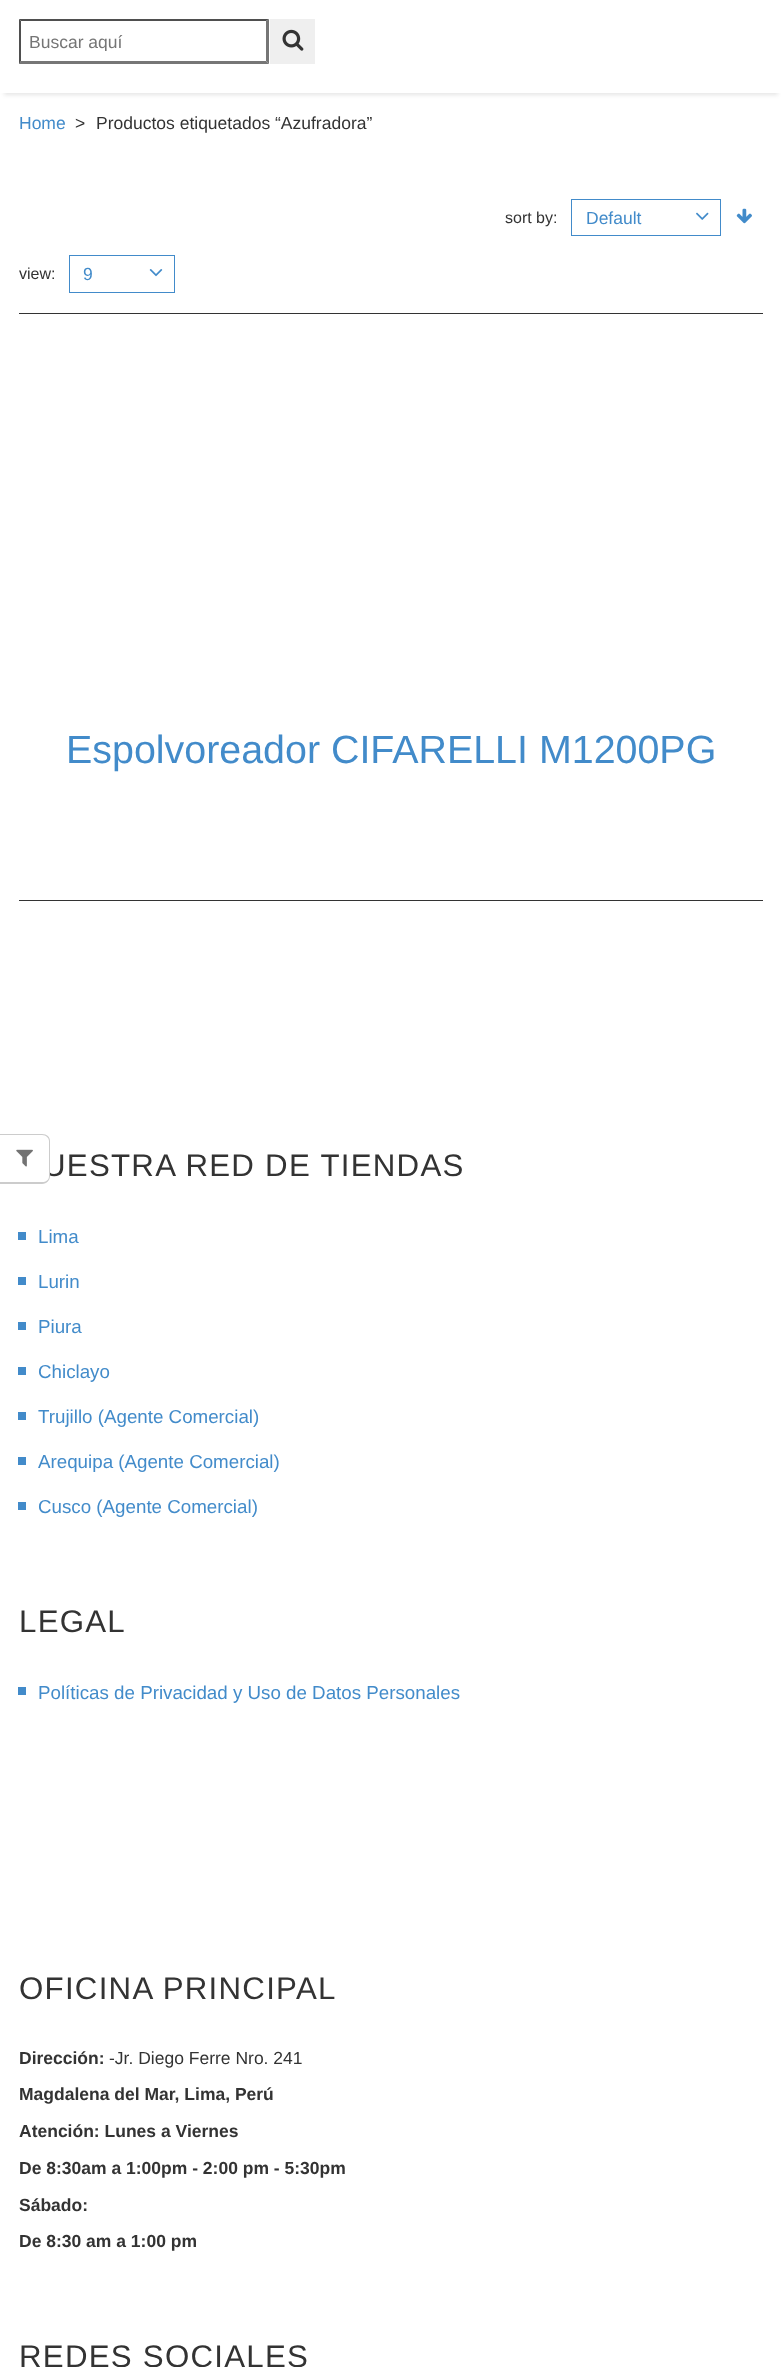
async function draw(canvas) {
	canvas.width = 781;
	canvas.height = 2367;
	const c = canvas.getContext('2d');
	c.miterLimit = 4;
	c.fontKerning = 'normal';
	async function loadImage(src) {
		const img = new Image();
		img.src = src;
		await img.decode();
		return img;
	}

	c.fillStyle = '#fff';
	c.fillRect(0, 0, 781, 2367);
	c.save();
	c.beginPath();
	c.moveTo(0, 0);
	c.lineTo(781, 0);
	c.lineTo(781, 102);
	c.lineTo(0, 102);
	c.closePath();
	c.moveTo(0, -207);
	c.lineTo(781, -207);
	c.lineTo(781, 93);
	c.lineTo(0, 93);
	c.closePath();
	c.clip('evenodd');
	c.fillStyle = '#0000001a';
	c.filter = 'blur(2px)';
	c.beginPath();
	c.rect(4, -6, 774, 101);
	c.fill();
	c.filter = 'none';
	c.restore();
	c.fillStyle = '#4f4f4f';
	c.beginPath();
	c.moveTo(19, 19);
	c.lineTo(269, 19);
	c.lineTo(266, 21);
	c.lineTo(21, 21);
	c.closePath();
	c.fill();
	c.fillStyle = '#767676';
	c.beginPath();
	c.moveTo(269, 19);
	c.lineTo(269, 64);
	c.lineTo(266, 61);
	c.lineTo(266, 21);
	c.closePath();
	c.fill();
	c.beginPath();
	c.moveTo(269, 64);
	c.lineTo(19, 64);
	c.lineTo(21, 61);
	c.lineTo(266, 61);
	c.closePath();
	c.fill();
	c.fillStyle = '#4f4f4f';
	c.beginPath();
	c.moveTo(19, 64);
	c.lineTo(19, 19);
	c.lineTo(21, 21);
	c.lineTo(21, 61);
	c.closePath();
	c.fill();
	c.save();
	c.beginPath();
	c.rect(29, 31, 225, 20);
	c.clip();
	c.font = '17.5px Liberation Sans';
	c.fillStyle = '#757575';
	c.fillText('Buscar aquí', 29, 48);
	c.restore();
	c.fillStyle = '#efefef';
	c.fillRect(270, 19, 45, 45);
	c.drawImage(await loadImage('img1.png'), 282, 29, 22, 22);
	c.font = '17.5px Liberation Sans';
	c.fillStyle = '#428bca';
	c.fillText('Home', 19, 129);
	c.fillStyle = '#333';
	c.fillText('>', 75, 129);
	c.fillText('Productos etiquetados “Azufradora”', 96, 129);
	c.font = '16px Liberation Sans';
	c.fillText('sort by:', 505, 223);
	c.strokeStyle = '#428bca';
	c.strokeRect(571.5, 199.5, 149, 36);
	c.font = '17.5px Liberation Sans';
	c.fillStyle = '#428bca';
	c.fillText('Default', 586, 224);
	c.drawImage(await loadImage('img2.png'), 696, 212, 13, 8);
	c.drawImage(await loadImage('img3.png'), 736, 208, 16, 16);
	c.fillStyle = '#333';
	c.fillRect(19, 313, 744, 1);
	c.font = '16px Liberation Sans';
	c.fillText('view:', 19, 279);
	c.strokeRect(69.5, 255.5, 105, 37);
	c.font = '17.5px Liberation Sans';
	c.fillStyle = '#428bca';
	c.fillText('9', 83, 280);
	c.drawImage(await loadImage('img4.png'), 149, 269, 14, 8);
	c.font = '39.4px Liberation Sans';
	c.fillText('Espolvoreador CIFARELLI M1200PG', 66, 763);
	c.fillStyle = '#333';
	c.fillRect(19, 900, 744, 1);
	c.letterSpacing = '1.25px';
	c.font = '31.25px Liberation Sans';
	c.fillText('UESTRA RED DE TIENDAS', 43, 1176);
	c.fillStyle = '#428bca';
	c.fillRect(18, 1232, 8, 8);
	c.letterSpacing = '0px';
	c.font = '18.75px Liberation Sans';
	c.fillText('Lima', 38, 1243);
	c.fillRect(18, 1277, 8, 8);
	c.fillText('Lurin', 38, 1288);
	c.fillRect(18, 1322, 8, 8);
	c.fillText('Piura', 38, 1333);
	c.fillRect(18, 1367, 8, 8);
	c.fillText('Chiclayo', 38, 1378);
	c.fillRect(18, 1412, 8, 8);
	c.fillText('Trujillo (Agente Comercial)', 38, 1423);
	c.fillRect(18, 1457, 8, 8);
	c.fillText('Arequipa (Agente Comercial)', 38, 1468);
	c.fillRect(18, 1502, 8, 8);
	c.fillText('Cusco (Agente Comercial)', 38, 1513);
	c.letterSpacing = '1.25px';
	c.font = '31.25px Liberation Sans';
	c.fillStyle = '#333';
	c.fillText('LEGAL', 19, 1632);
	c.fillStyle = '#428bca';
	c.fillRect(18, 1687, 8, 8);
	c.letterSpacing = '0px';
	c.font = '18.75px Liberation Sans';
	c.fillText('Políticas de Privacidad y Uso de Datos Personales', 38, 1699);
	c.letterSpacing = '1.25px';
	c.font = '31.25px Liberation Sans';
	c.fillStyle = '#333';
	c.fillText('OFICINA PRINCIPAL', 19, 1999);
	c.letterSpacing = '0px';
	c.font = 'bold 17.5px Liberation Sans';
	c.fillText('Dirección:', 19, 2064);
	c.font = '17.5px Liberation Sans';
	c.fillText('-Jr. Diego Ferre Nro. 241', 109, 2064);
	c.font = 'bold 17.5px Liberation Sans';
	for (const [text, x, y] of [
		['Magdalena del Mar, Lima, Perú', 19, 2100],
		['Atención: Lunes a Viernes', 19, 2137],
		['De 8:30am a 1:00pm - 2:00 pm - 5:30pm', 19, 2174],
		['Sábado:', 19, 2211],
		['De 8:30 am a 1:00 pm', 19, 2247],
	]) {
		c.fillText(text, x, y);
	}
	c.letterSpacing = '1.25px';
	c.font = '31.25px Liberation Sans';
	c.fillText('REDES SOCIALES', 19, 2367);
	c.fillStyle = '#fff';
	c.beginPath();
	c.roundRect(0, 1135, 49, 48, [0, 6, 6, 0]);
	c.fill();
	c.fillStyle = '#ccc';
	c.beginPath();
	c.moveTo(0, 1134);
	c.lineTo(42, 1134);
	c.bezierCurveTo(47, 1134, 50, 1137, 50, 1141);
	c.lineTo(50, 1176);
	c.bezierCurveTo(50, 1180, 47, 1184, 42, 1184);
	c.lineTo(0, 1184);
	c.closePath();
	c.moveTo(0, 1135);
	c.lineTo(42, 1135);
	c.bezierCurveTo(46, 1135, 49, 1138, 49, 1141);
	c.lineTo(49, 1176);
	c.bezierCurveTo(49, 1180, 46, 1182, 42, 1182);
	c.lineTo(0, 1182);
	c.closePath();
	c.fill('evenodd');
	c.drawImage(await loadImage('img5.png'), 16, 1149, 17, 18);
}

draw(document.querySelector('canvas'));
